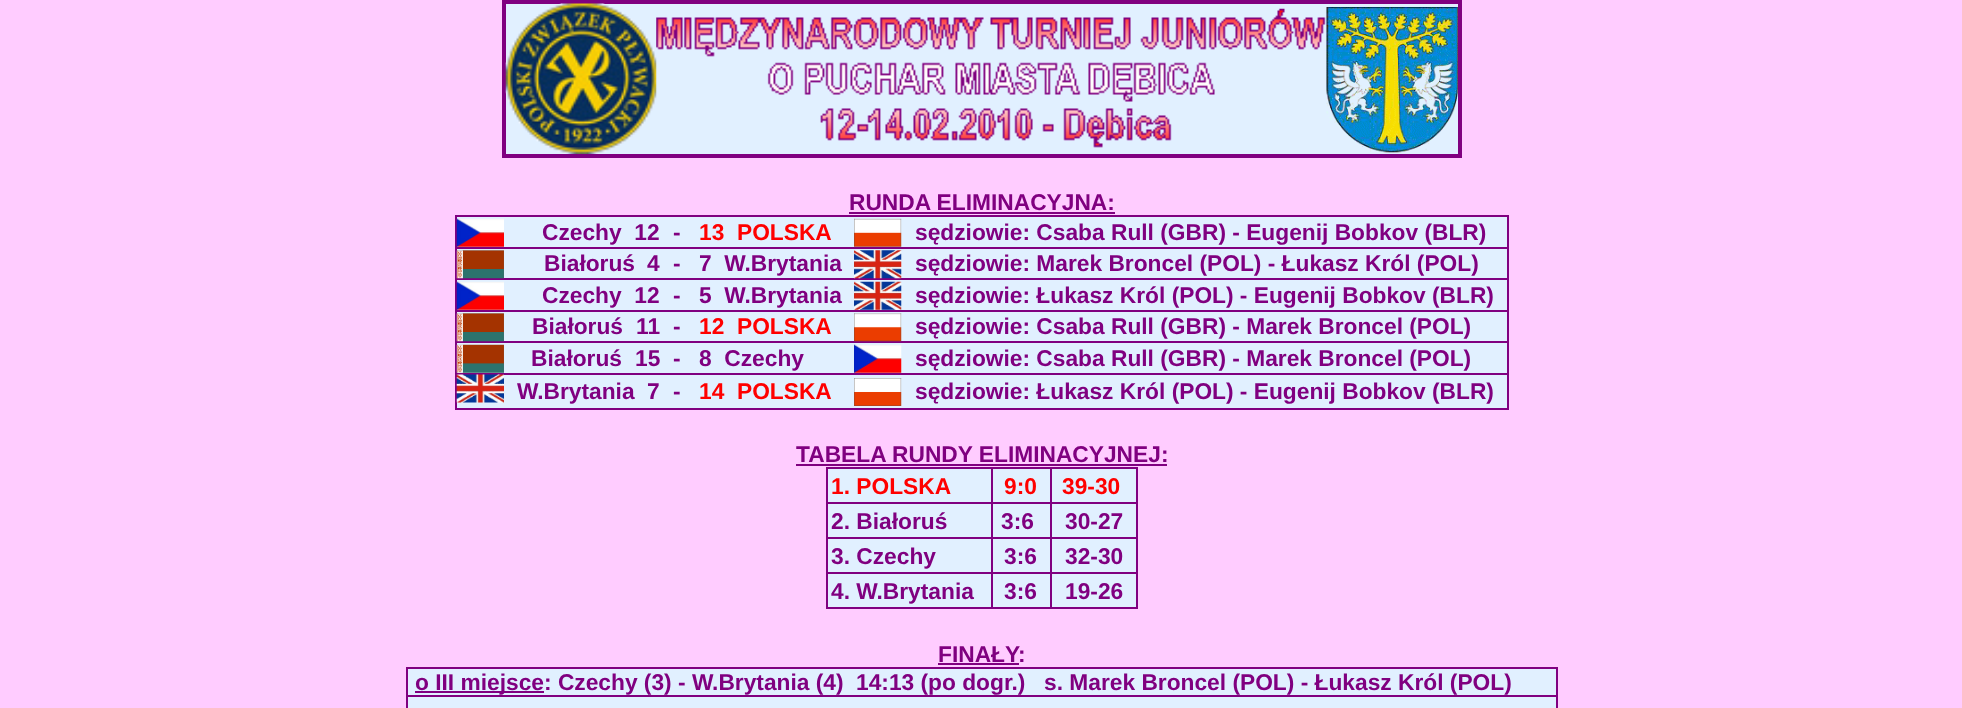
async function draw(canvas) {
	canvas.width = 1962;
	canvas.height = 708;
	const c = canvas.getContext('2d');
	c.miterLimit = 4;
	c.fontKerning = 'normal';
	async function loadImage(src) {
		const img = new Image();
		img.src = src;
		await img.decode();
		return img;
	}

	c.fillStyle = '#fcf';
	c.fillRect(0, 0, 1962, 708);
	for (const [x, y, w, h, color] of [
		[506, 4, 952, 150, '#e1f0ff'],
		[502, 0, 959, 4, '#800080'],
		[1458, 0, 4, 158, '#800080'],
		[502, 154, 959, 4, '#800080'],
		[502, 0, 4, 158, '#800080'],
	]) {
		c.fillStyle = color;
		c.fillRect(x, y, w, h);
	}
	c.drawImage(await loadImage('img1.png'), 505, 3, 152, 151);
	c.drawImage(await loadImage('img2.png'), 656, 8, 670, 140);
	c.drawImage(await loadImage('img3.png'), 1326, 7, 132, 146);
	c.font = 'bold 22.75px Liberation Sans';
	c.fillText('RUNDA ELIMINACYJNA:', 849, 210);
	for (const [x, y, w, h, color] of [
		[849, 212, 266, 2, '#800080'],
		[457, 217, 1050, 191, '#e1f0ff'],
		[455, 215, 1054, 2, '#800080'],
		[1507, 215, 2, 195, '#800080'],
		[455, 408, 1054, 2, '#800080'],
		[455, 215, 2, 195, '#800080'],
	]) {
		c.fillStyle = color;
		c.fillRect(x, y, w, h);
	}
	c.drawImage(await loadImage('img4.png'), 456, 218, 48, 29);
	c.fillText('Czechy  12', 542, 240);
	c.fillText('-', 673, 240);
	c.fillStyle = '#f00';
	c.fillText('13', 699, 240);
	c.fillText('POLSKA', 737, 240);
	c.drawImage(await loadImage('img5.png'), 854, 218, 48, 29);
	c.fillStyle = '#800080';
	c.fillText('sędziowie: Csaba Rull (GBR) - Eugenij Bobkov (BLR)', 915, 240);
	c.fillRect(455, 278, 1054, 2);
	c.drawImage(await loadImage('img6.png'), 456, 250, 48, 29);
	for (const [text, x, y] of [
		['Białoruś', 544, 271],
		['4', 647, 271],
		['-', 673, 271],
		['7  W.Brytania', 699, 271],
	]) {
		c.fillText(text, x, y);
	}
	c.drawImage(await loadImage('img7.png'), 854, 250, 48, 29);
	c.fillRect(455, 247, 1054, 2);
	c.fillText('sędziowie: Marek Broncel (POL) - Łukasz Król (POL)', 915, 271);
	c.drawImage(await loadImage('img8.png'), 456, 281, 48, 29);
	for (const [text, x, y] of [
		['Czechy  12', 542, 303],
		['-', 673, 303],
		['5  W.Brytania', 699, 303],
	]) {
		c.fillText(text, x, y);
	}
	c.drawImage(await loadImage('img9.png'), 854, 281, 48, 29);
	c.fillText('sędziowie: Łukasz Król (POL) - Eugenij Bobkov (BLR)', 915, 303);
	c.fillRect(455, 341, 1054, 2);
	c.drawImage(await loadImage('img10.png'), 456, 313, 48, 29);
	for (const [text, x, y] of [
		['Białoruś', 532, 334],
		['11', 636, 334],
		['-', 673, 334],
	]) {
		c.fillText(text, x, y);
	}
	c.fillStyle = '#f00';
	c.fillText('12', 699, 334);
	c.fillText('POLSKA', 737, 334);
	c.drawImage(await loadImage('img11.png'), 854, 313, 48, 29);
	c.fillStyle = '#800080';
	c.fillRect(455, 310, 1054, 2);
	c.fillText('sędziowie: Csaba Rull (GBR) - Marek Broncel (POL)', 915, 334);
	c.drawImage(await loadImage('img12.png'), 456, 344, 48, 29);
	for (const [text, x, y] of [
		['Białoruś', 531, 366],
		['15', 635, 366],
		['-', 673, 366],
		['8  Czechy', 699, 366],
	]) {
		c.fillText(text, x, y);
	}
	c.drawImage(await loadImage('img13.png'), 854, 344, 48, 29);
	c.fillText('sędziowie: Csaba Rull (GBR) - Marek Broncel (POL)', 915, 366);
	c.fillRect(455, 373, 1054, 2);
	c.drawImage(await loadImage('img14.png'), 456, 374, 48, 29);
	for (const [text, x, y] of [
		['W.Brytania', 517, 399],
		['7', 647, 399],
		['-', 673, 399],
	]) {
		c.fillText(text, x, y);
	}
	c.fillStyle = '#f00';
	c.fillText('14', 699, 399);
	c.fillText('POLSKA', 737, 399);
	c.drawImage(await loadImage('img15.png'), 854, 378, 48, 28);
	c.fillStyle = '#800080';
	c.fillText('sędziowie: Łukasz Król (POL) - Eugenij Bobkov (BLR)', 915, 399);
	c.fillText('TABELA RUNDY ELIMINACYJNEJ:', 796, 462);
	for (const [x, y, w, h, color] of [
		[796, 464, 371, 2, '#800080'],
		[828, 469, 308, 138, '#e1f0ff'],
		[826, 467, 312, 2, '#800080'],
		[1136, 467, 2, 142, '#800080'],
		[826, 607, 312, 2, '#800080'],
		[826, 467, 2, 142, '#800080'],
	]) {
		c.fillStyle = color;
		c.fillRect(x, y, w, h);
	}
	c.fillStyle = '#f00';
	c.fillText('1. POLSKA', 831, 494);
	for (const [x, y, w, h, color] of [
		[1050, 502, 88, 2, '#800080'],
		[1050, 537, 88, 2, '#800080'],
		[1050, 572, 88, 2, '#800080'],
		[1050, 572, 2, 37, '#800080'],
		[991, 572, 61, 2, '#800080'],
		[1050, 537, 2, 37, '#800080'],
		[991, 537, 61, 2, '#800080'],
		[1050, 502, 2, 37, '#800080'],
		[991, 502, 61, 2, '#800080'],
		[991, 572, 2, 37, '#800080'],
		[826, 572, 166, 2, '#800080'],
		[991, 537, 2, 37, '#800080'],
		[826, 537, 166, 2, '#800080'],
		[991, 502, 2, 37, '#800080'],
		[826, 502, 166, 2, '#800080'],
		[991, 467, 2, 37, '#800080'],
	]) {
		c.fillStyle = color;
		c.fillRect(x, y, w, h);
	}
	c.fillStyle = '#f00';
	c.fillText('9:0', 1004, 494);
	c.fillStyle = '#800080';
	c.fillRect(1050, 467, 2, 37);
	c.fillStyle = '#f00';
	c.fillText('39-30', 1062, 494);
	c.fillStyle = '#800080';
	for (const [text, x, y] of [
		['2. Białoruś', 831, 529],
		['3:6', 1001, 529],
		['30-27', 1065, 529],
		['3. Czechy', 831, 564],
		['3:6', 1004, 564],
		['32-30', 1065, 564],
		['4. W.Brytania', 831, 599],
		['3:6', 1004, 599],
		['19-26', 1065, 599],
		['FINAŁY', 938, 662],
	]) {
		c.fillText(text, x, y);
	}
	c.fillRect(938, 663, 81, 2);
	c.fillText(':', 1018, 662);
	for (const [x, y, w, h, color] of [
		[408, 669, 1148, 39, '#e1f0ff'],
		[406, 667, 1152, 2, '#800080'],
		[1556, 667, 2, 41, '#800080'],
		[406, 667, 2, 41, '#800080'],
		[415, 691, 129, 2, '#800080'],
	]) {
		c.fillStyle = color;
		c.fillRect(x, y, w, h);
	}
	for (const [text, x, y] of [
		['o III miejsce: Czechy (3) - W.Brytania (4)', 415, 690],
		['14:13 (po dogr.)', 856, 690],
		['s. Marek Broncel (POL) - Łukasz Król (POL)', 1044, 690],
	]) {
		c.fillText(text, x, y);
	}
	c.fillRect(406, 695, 1152, 2);
}

draw(document.querySelector('canvas'));
